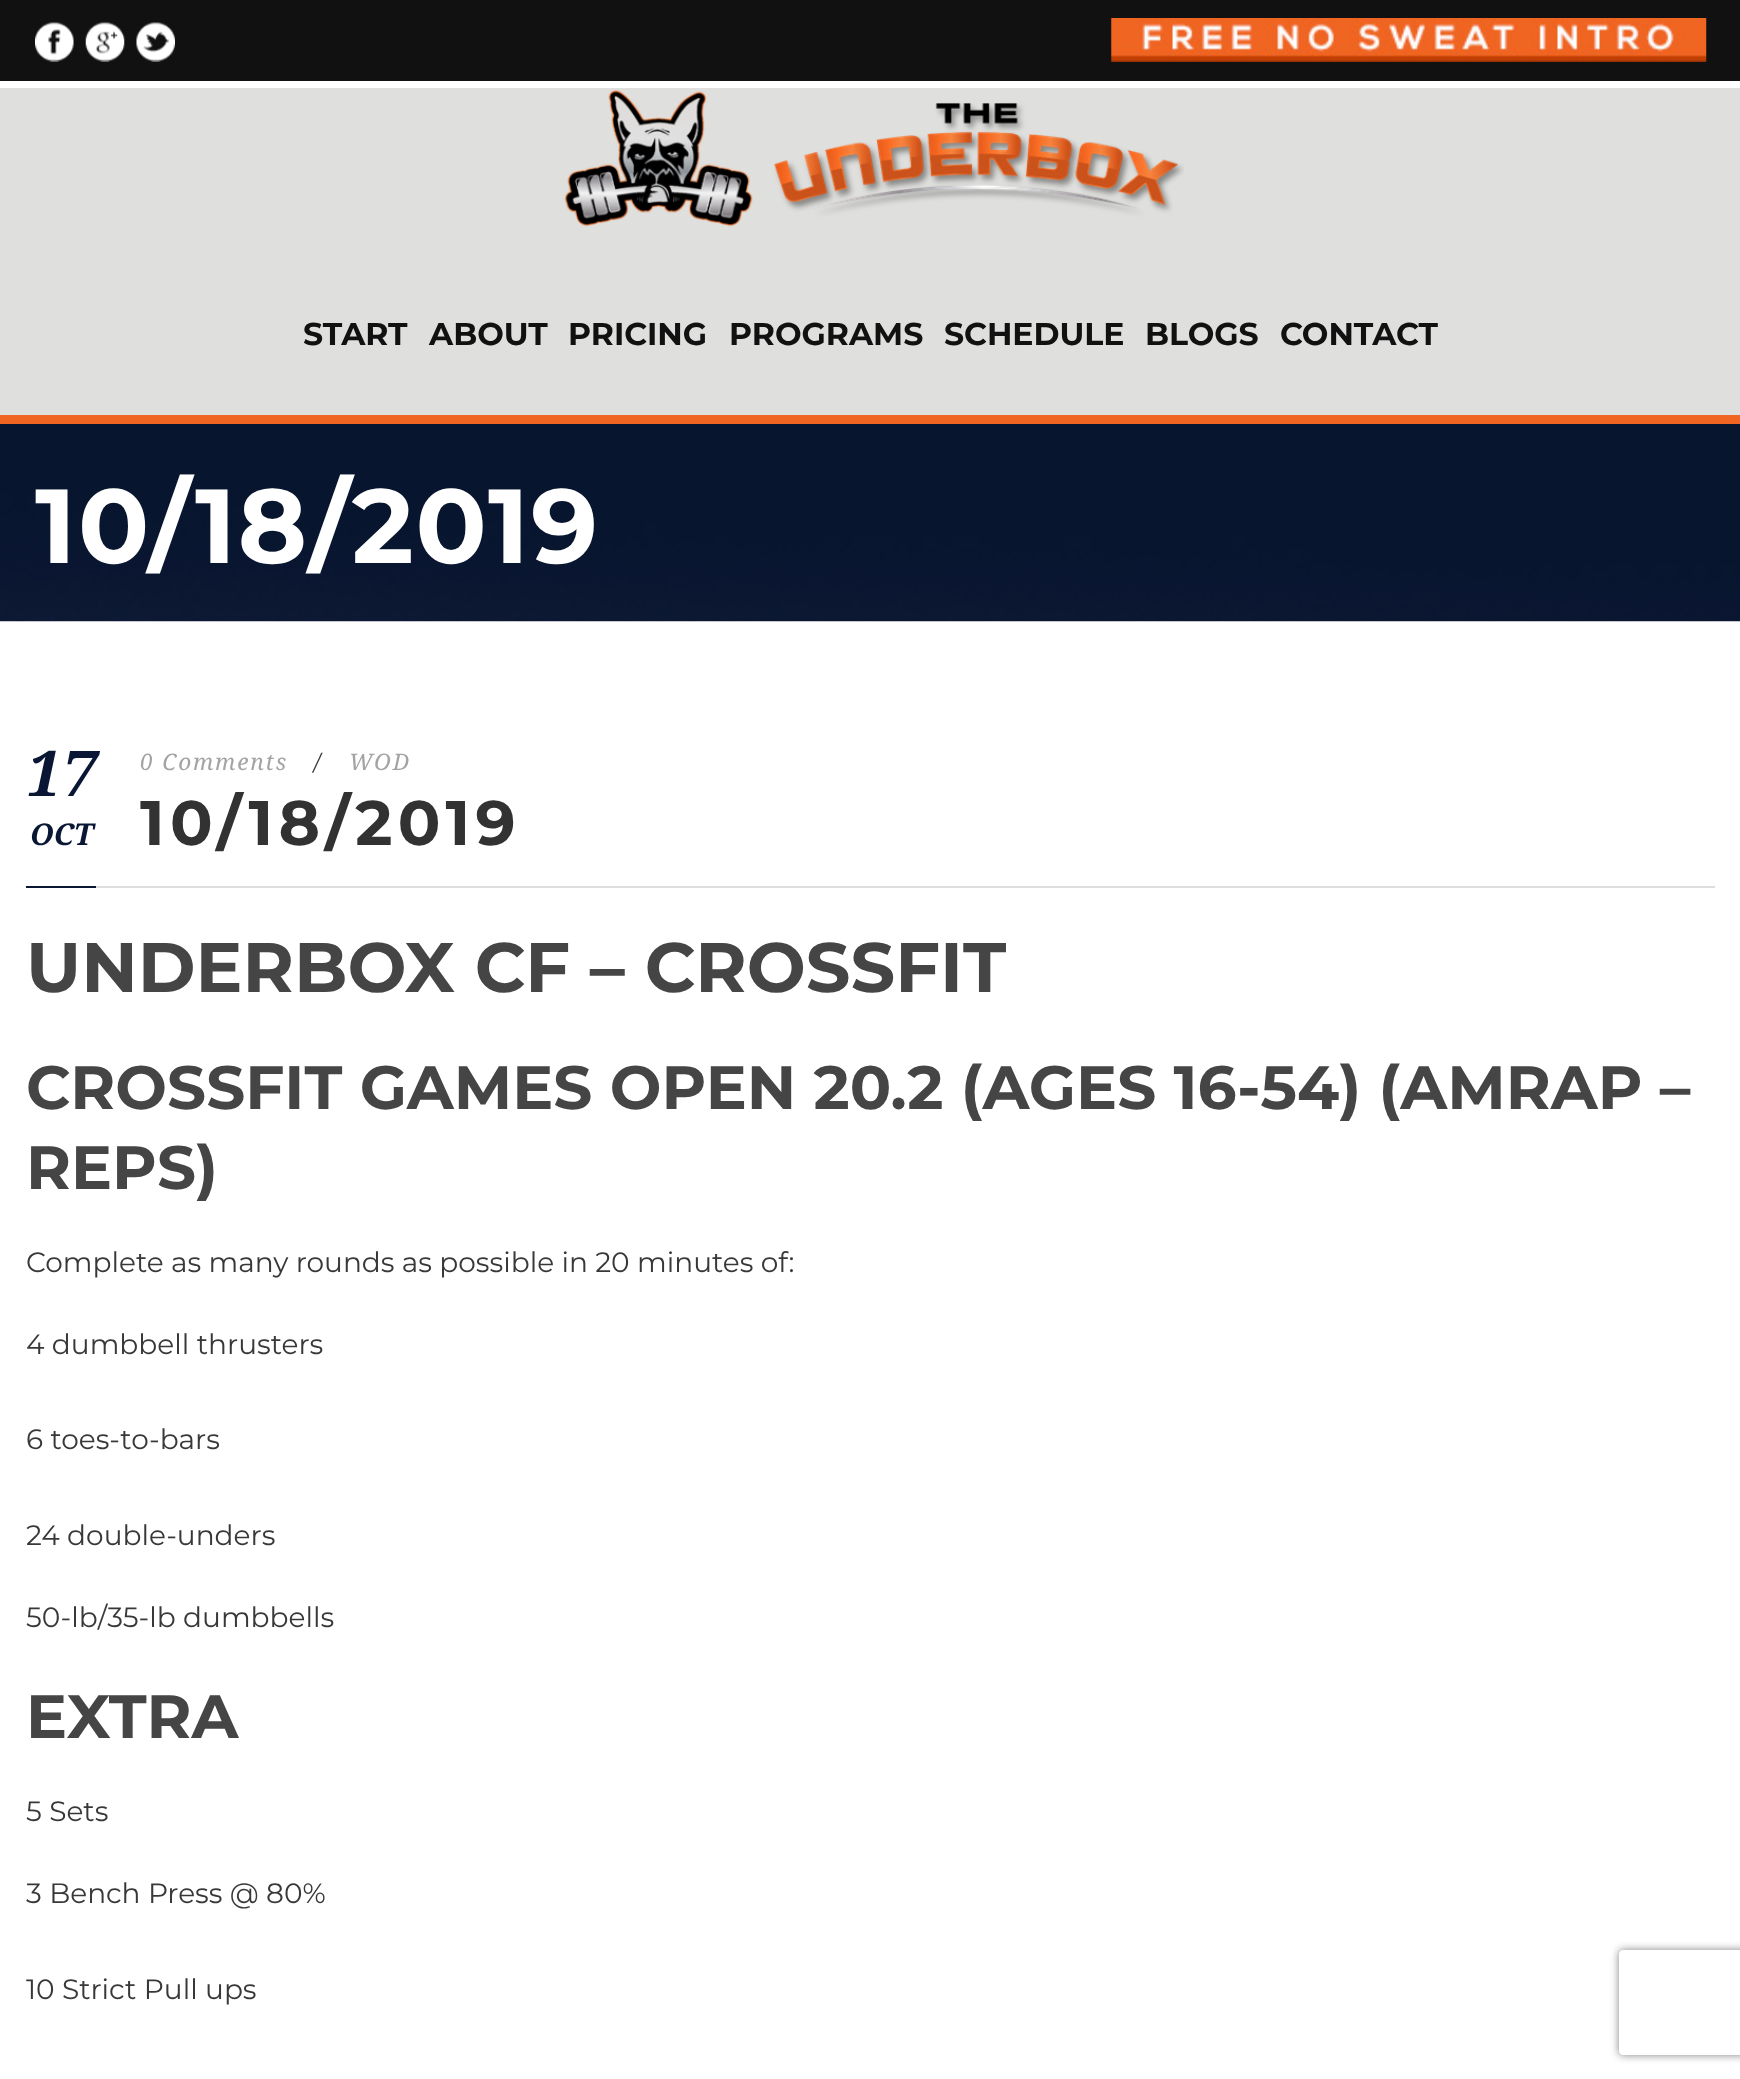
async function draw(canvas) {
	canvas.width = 1740;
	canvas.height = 2079;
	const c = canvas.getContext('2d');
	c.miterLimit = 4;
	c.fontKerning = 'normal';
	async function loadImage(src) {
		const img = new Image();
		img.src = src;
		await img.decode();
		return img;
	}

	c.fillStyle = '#fff';
	c.fillRect(0, 0, 1740, 2079);
	c.fillStyle = '#111';
	c.fillRect(0, 0, 1740, 81);
	c.drawImage(await loadImage('img1.png'), 35, 22, 39, 40);
	c.drawImage(await loadImage('img2.png'), 85, 22, 40, 40);
	c.drawImage(await loadImage('img3.png'), 136, 22, 39, 40);
	c.drawImage(await loadImage('img4.png'), 1111, 18, 596, 44);
	c.fillStyle = '#dfdfdd';
	c.fillRect(0, 88, 1740, 327);
	c.fillStyle = '#f06522';
	c.fillRect(0, 415, 1740, 9);
	c.drawImage(await loadImage('img5.png'), 564, 90, 620, 137);
	c.font = 'bold 31.5px Montserrat';
	c.fillStyle = '#111';
	for (const [text, x, y] of [
		['START', 303, 345],
		['ABOUT', 429, 345],
		['PRICING', 568, 345],
		['PROGRAMS', 729, 345],
		['SCHEDULE', 944, 345],
		['BLOGS', 1145, 345],
		['CONTACT', 1280, 345],
	]) {
		c.fillText(text, x, y);
	}
	c.drawImage(await loadImage('img6.png'), 0, 424, 1740, 198);
	c.letterSpacing = '1.75px';
	c.font = 'bold 105px Montserrat';
	c.fillStyle = '#fff';
	c.fillText('10/18/2019', 35, 563);
	c.fillStyle = '#ddd';
	c.fillRect(96, 886, 1619, 2);
	c.letterSpacing = '0px';
	c.font = 'italic bold 63px Droid Serif';
	c.fillStyle = '#0a1734';
	c.fillText('17', 26, 796);
	c.font = 'italic bold 30px Droid Serif';
	c.fillText('OCT', 30, 845);
	c.letterSpacing = '1.75px';
	c.font = 'italic 22.75px Droid Serif';
	c.fillStyle = '#a3a3a3';
	c.fillText('0 Comments', 140, 770);
	c.fillStyle = '#383838';
	c.fillText('/', 314, 770);
	c.fillStyle = '#a3a3a3';
	c.fillText('WOD', 349, 770);
	c.letterSpacing = '5.25px';
	c.font = 'bold 63px Montserrat';
	c.fillStyle = '#323232';
	c.fillText('10/18/2019', 140, 845);
	c.fillStyle = '#0a1734';
	c.fillRect(26, 886, 70, 2);
	c.letterSpacing = '0px';
	c.font = 'bold 70px Montserrat';
	c.fillStyle = '#454545';
	c.fillText('UNDERBOX CF – CROSSFIT', 26, 992);
	c.font = 'bold 61.25px Montserrat';
	c.fillText('CROSSFIT GAMES OPEN 20.2 (AGES 16-54) (AMRAP –', 26, 1109);
	c.fillText('REPS)', 26, 1189);
	c.font = '28px Montserrat';
	c.fillStyle = '#383838';
	for (const [text, x, y] of [
		['Complete as many rounds as possible in 20 minutes of:', 26, 1272],
		['4 dumbbell thrusters', 26, 1354],
		['6 toes-to-bars', 26, 1449],
		['24 double-unders', 26, 1545],
		['50-lb/35-lb dumbbells', 26, 1627],
	]) {
		c.fillText(text, x, y);
	}
	c.font = 'bold 61.25px Montserrat';
	c.fillStyle = '#454545';
	c.fillText('EXTRA', 26, 1738);
	c.font = '28px Montserrat';
	c.fillStyle = '#383838';
	for (const [text, x, y] of [
		['5 Sets', 26, 1821],
		['3 Bench Press @ 80%', 26, 1903],
		['10 Strict Pull ups', 26, 1999],
	]) {
		c.fillText(text, x, y);
	}
	c.save();
	c.beginPath();
	c.moveTo(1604, 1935);
	c.lineTo(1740, 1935);
	c.lineTo(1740, 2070);
	c.lineTo(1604, 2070);
	c.closePath();
	c.moveTo(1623, 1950);
	c.lineTo(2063, 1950);
	c.bezierCurveTo(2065, 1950, 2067, 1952, 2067, 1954);
	c.lineTo(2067, 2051);
	c.bezierCurveTo(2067, 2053, 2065, 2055, 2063, 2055);
	c.lineTo(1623, 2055);
	c.bezierCurveTo(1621, 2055, 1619, 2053, 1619, 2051);
	c.lineTo(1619, 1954);
	c.bezierCurveTo(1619, 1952, 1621, 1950, 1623, 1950);
	c.closePath();
	c.clip('evenodd');
	c.fillStyle = '#808080';
	c.filter = 'blur(4.5px)';
	c.beginPath();
	c.roundRect(1619, 1950, 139, 105, 4);
	c.fill();
	c.filter = 'none';
	c.restore();
}

draw(document.querySelector('canvas'));
